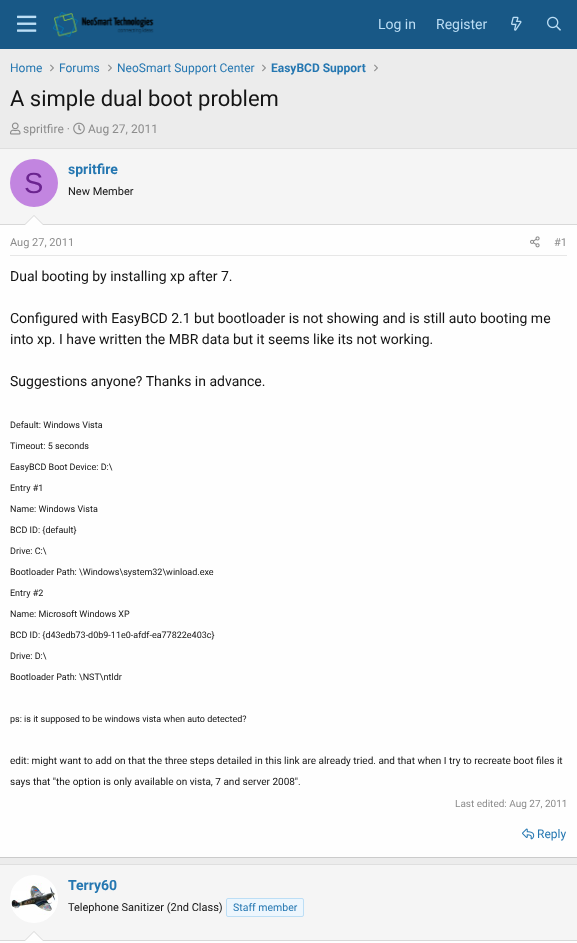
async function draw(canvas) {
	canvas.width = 577;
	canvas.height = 943;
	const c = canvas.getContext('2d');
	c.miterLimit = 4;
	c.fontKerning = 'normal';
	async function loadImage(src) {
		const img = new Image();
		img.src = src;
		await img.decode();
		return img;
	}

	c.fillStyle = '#ececec';
	c.fillRect(0, 0, 577, 943);
	c.fillStyle = '#185886';
	c.fillRect(0, 0, 577, 49);
	c.drawImage(await loadImage('img1.png'), 17, 15, 20, 17);
	c.drawImage(await loadImage('img2.png'), 53, 12, 101, 25);
	c.font = '14px Roboto';
	c.fillStyle = '#bcdef5';
	c.fillText('Log in', 378, 29);
	c.fillText('Register', 436, 29);
	c.drawImage(await loadImage('img3.png'), 511, 16, 11, 15);
	c.drawImage(await loadImage('img4.png'), 547, 16, 14, 15);
	c.font = '12px Roboto';
	c.fillStyle = '#2577b1';
	c.fillText('Home', 10, 72);
	c.drawImage(await loadImage('img5.png'), 50, 64, 4, 8);
	c.fillText('Forums', 59, 72);
	c.drawImage(await loadImage('img5.png'), 108, 64, 4, 8);
	c.fillText('NeoSmart Support Center', 117, 72);
	c.drawImage(await loadImage('img5.png'), 262, 64, 4, 8);
	c.font = 'bold 12px Roboto';
	c.fillText('EasyBCD Support', 271, 72);
	c.drawImage(await loadImage('img5.png'), 374, 64, 4, 8);
	c.font = '22px Roboto';
	c.fillStyle = '#141414';
	c.fillText('A simple dual boot problem', 10, 106);
	c.drawImage(await loadImage('img6.png'), 10, 122, 11, 13);
	c.font = '12px Roboto';
	c.fillStyle = '#8c8c8c';
	c.fillText('spritfire ·', 23, 133);
	c.drawImage(await loadImage('img7.png'), 73, 122, 12, 13);
	c.fillText('Aug 27, 2011', 88, 133);
	for (const [x, y, w, h, color] of [
		[0, 225, 577, 632, '#fefefe'],
		[0, 148, 577, 1, '#dfdfdf'],
		[0, 857, 577, 1, '#cbcbcb'],
		[0, 149, 577, 75, '#f5f5f5'],
		[0, 224, 577, 1, '#d8d8d8'],
	]) {
		c.fillStyle = color;
		c.fillRect(x, y, w, h);
	}
	c.fillStyle = '#c285e0';
	c.beginPath();
	c.arc(34, 183, 24, 0, 2 * Math.PI);
	c.fill();
	c.font = '29px Liberation Sans';
	c.fillStyle = '#6b248f';
	c.fillText('S', 24, 193);
	c.font = 'bold 14px Roboto';
	c.fillStyle = '#2577b1';
	c.fillText('spritfire', 68, 174);
	c.font = '11px Roboto';
	c.fillStyle = '#141414';
	c.fillText('New Member', 68, 195);
	c.fillStyle = '#d8d8d8';
	c.beginPath();
	c.moveTo(44, 225);
	c.lineTo(24, 225);
	c.lineTo(34, 215);
	c.closePath();
	c.fill();
	c.fillStyle = '#fefefe';
	c.beginPath();
	c.moveTo(43, 225);
	c.lineTo(25, 225);
	c.lineTo(34, 216);
	c.closePath();
	c.fill();
	c.fillStyle = '#e7e7e7';
	c.fillRect(10, 255, 557, 1);
	c.fillStyle = '#8c8c8c';
	c.fillText('Aug 27, 2011', 10, 246);
	c.drawImage(await loadImage('img8.png'), 530, 236, 10, 12);
	c.fillText('#1', 554, 246);
	c.font = '14px Roboto';
	c.fillStyle = '#141414';
	for (const [text, x, y] of [
		['Dual booting by installing xp after 7.', 10, 281],
		['Configured with EasyBCD 2.1 but bootloader is not showing and is still auto booting me', 10, 323],
		['into xp. I have written the MBR data but it seems like its not working.', 10, 344],
		['Suggestions anyone? Thanks in advance.', 10, 386],
	]) {
		c.fillText(text, x, y);
	}
	c.font = '9px Roboto';
	for (const [text, x, y] of [
		['Default: Windows Vista', 10, 428],
		['Timeout: 5 seconds', 10, 449],
		['EasyBCD Boot Device: D:\\', 10, 470],
		['Entry #1', 10, 491],
		['Name: Windows Vista', 10, 512],
		['BCD ID: {default}', 10, 533],
		['Drive: C:\\', 10, 554],
		['Bootloader Path: \\Windows\\system32\\winload.exe', 10, 575],
		['Entry #2', 10, 596],
		['Name: Microsoft Windows XP', 10, 617],
		['BCD ID: {d43edb73-d0b9-11e0-afdf-ea77822e403c}', 10, 638],
		['Drive: D:\\', 10, 659],
		['Bootloader Path: \\NST\\ntldr', 10, 680],
		['ps: is it supposed to be windows vista when auto detected?', 10, 722],
	]) {
		c.fillText(text, x, y);
	}
	c.font = '10px Roboto';
	c.fillText('edit: might want to add on that the three steps detailed in this link are already tried. and that when I try to recreate boot files it', 10, 764);
	c.fillText('says that "the option is only available on vista, 7 and server 2008".', 10, 785);
	c.fillStyle = '#8c8c8c';
	c.fillText('Last edited: Aug 27, 2011', 455, 807);
	c.drawImage(await loadImage('img9.png'), 522, 828, 13, 12);
	c.font = '12px Roboto';
	c.fillStyle = '#2577b1';
	c.fillText('Reply', 537, 838);
	for (const [x, y, w, h, color] of [
		[0, 941, 577, 2, '#fefefe'],
		[0, 864, 577, 1, '#dfdfdf'],
		[0, 865, 577, 75, '#f5f5f5'],
		[0, 940, 577, 1, '#d8d8d8'],
	]) {
		c.fillStyle = color;
		c.fillRect(x, y, w, h);
	}
	c.fillStyle = '#fefefe';
	c.beginPath();
	c.arc(34, 899, 24, 0, 2 * Math.PI);
	c.fill();
	c.drawImage(await loadImage('img10.png'), 11, 883, 47, 32);
	c.font = 'bold 14px Roboto';
	c.fillStyle = '#2577b1';
	c.fillText('Terry60', 68, 890);
	c.font = '11px Roboto';
	c.fillStyle = '#141414';
	c.fillText('Telephone Sanitizer (2nd Class)', 68, 911);
	c.fillStyle = '#edf6fd';
	c.beginPath();
	c.roundRect(226.5, 898.5, 77, 18, 1.5);
	c.fill();
	c.strokeStyle = '#bcdef5';
	c.stroke();
	c.font = '10.5px Roboto';
	c.fillStyle = '#2577b1';
	c.fillText('Staff member', 233, 911);
	c.fillStyle = '#d8d8d8';
	c.beginPath();
	c.moveTo(44, 941);
	c.lineTo(24, 941);
	c.lineTo(34, 931);
	c.closePath();
	c.fill();
	c.fillStyle = '#fefefe';
	c.beginPath();
	c.moveTo(43, 941);
	c.lineTo(25, 941);
	c.lineTo(34, 932);
	c.closePath();
	c.fill();
}

draw(document.querySelector('canvas'));
